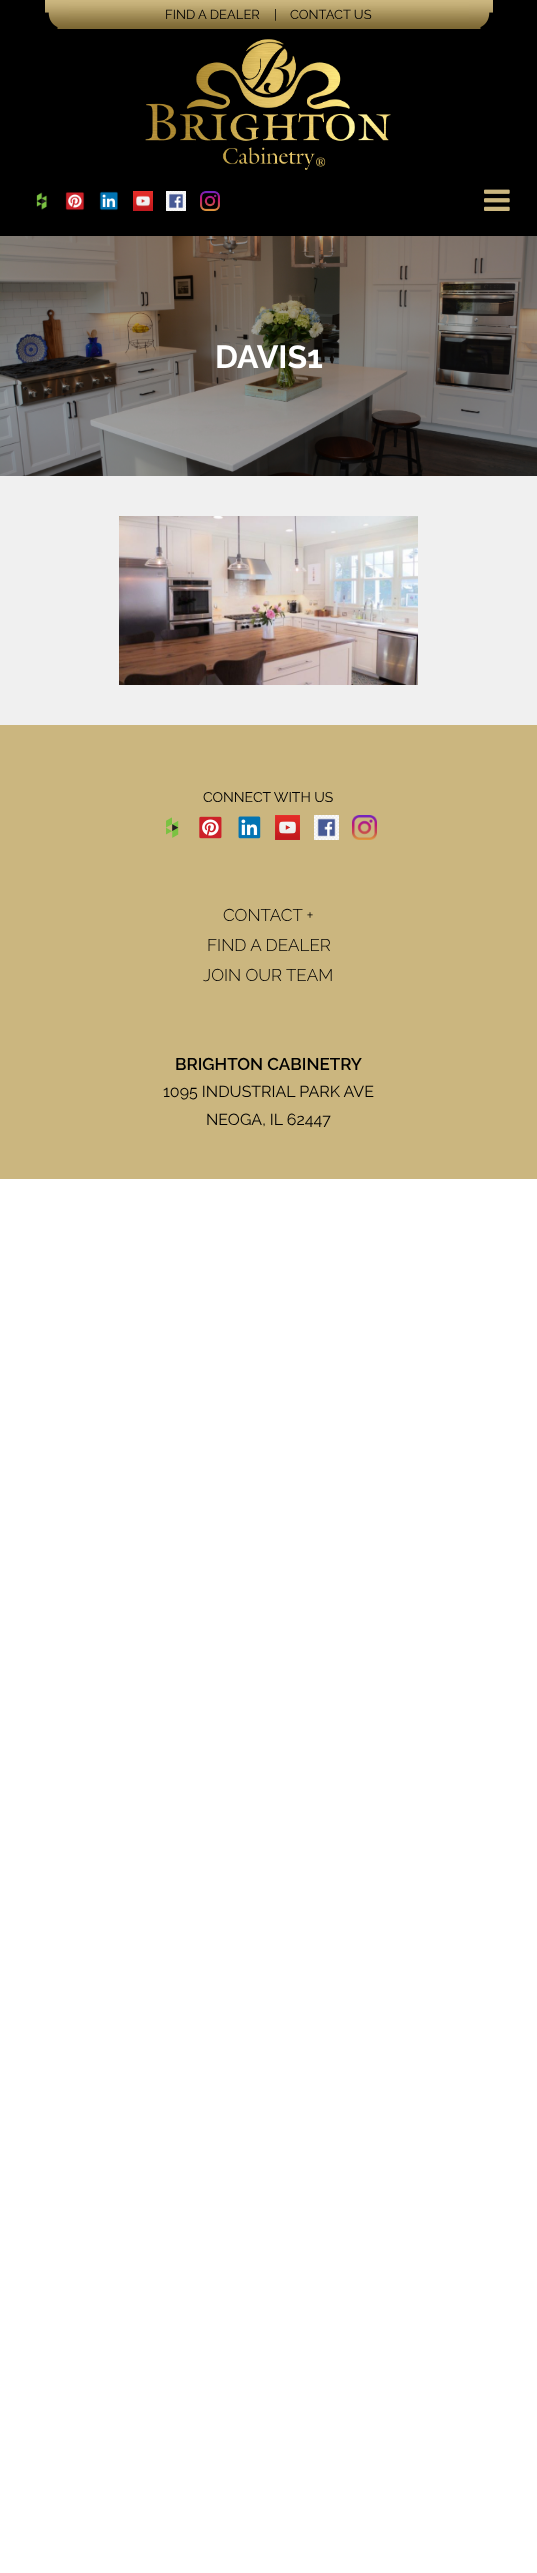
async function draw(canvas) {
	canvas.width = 537;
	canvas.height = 2573;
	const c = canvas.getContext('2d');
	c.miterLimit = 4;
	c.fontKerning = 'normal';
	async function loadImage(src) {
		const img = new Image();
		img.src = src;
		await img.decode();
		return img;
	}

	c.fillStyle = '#fff';
	c.fillRect(0, 0, 537, 2573);
	c.fillStyle = '#000';
	c.fillRect(0, 0, 537, 236);
	c.drawImage(await loadImage('img1.png'), 69, 0, 400, 29);
	c.drawImage(await loadImage('img2.png'), 45, 0, 24, 29);
	c.font = '13px Raleway';
	for (const [text, x, y] of [
		['FIND A DEALER', 165, 19],
		['|', 274, 19],
		['CONTACT US', 290, 19],
	]) {
		c.fillText(text, x, y);
	}
	c.drawImage(await loadImage('img3.png'), 469, 0, 24, 29);
	c.drawImage(await loadImage('img4.png'), 145, 39, 246, 131);
	c.drawImage(await loadImage('img5.png'), 36, 192, 12, 18);
	c.drawImage(await loadImage('img6.png'), 65, 192, 20, 19);
	c.drawImage(await loadImage('img7.png'), 99, 191, 19, 20);
	c.drawImage(await loadImage('img8.png'), 133, 191, 20, 20);
	c.drawImage(await loadImage('img9.png'), 166, 191, 20, 20);
	c.drawImage(await loadImage('img10.png'), 200, 191, 20, 20);
	c.drawImage(await loadImage('img11.png'), 484, 189, 26, 22);
	c.drawImage(await loadImage('img12.png'), 0, 236, 537, 240);
	c.font = 'bold 32px Raleway';
	c.fillStyle = '#fff';
	c.fillText('DAVIS1', 215, 368);
	c.fillStyle = '#f0f0f0';
	c.fillRect(0, 476, 537, 249);
	c.drawImage(await loadImage('img13.png'), 119, 516, 299, 169);
	c.fillStyle = '#cbb67f';
	c.fillRect(0, 725, 537, 454);
	c.font = '14px Raleway';
	c.fillStyle = '#000';
	c.fillText('CONNECT WITH US', 203, 802);
	c.drawImage(await loadImage('img14.png'), 166, 817, 13, 21);
	c.drawImage(await loadImage('img15.png'), 199, 816, 23, 23);
	c.drawImage(await loadImage('img16.png'), 238, 816, 23, 23);
	c.drawImage(await loadImage('img17.png'), 275, 815, 25, 25);
	c.drawImage(await loadImage('img18.png'), 314, 815, 25, 25);
	c.drawImage(await loadImage('img19.png'), 352, 815, 25, 25);
	c.font = '300 17px Raleway';
	for (const [text, x, y] of [
		['CONTACT +', 223, 921],
		['FIND A DEALER', 207, 951],
		['JOIN OUR TEAM', 203, 981],
	]) {
		c.fillText(text, x, y);
	}
	c.font = '600 17px Raleway';
	c.fillText('BRIGHTON CABINETRY', 175, 1070);
	c.font = '16px Raleway';
	c.fillText('1095 INDUSTRIAL PARK AVE', 163, 1097);
	c.fillText('NEOGA, IL 62447', 206, 1125);
}

draw(document.querySelector('canvas'));
